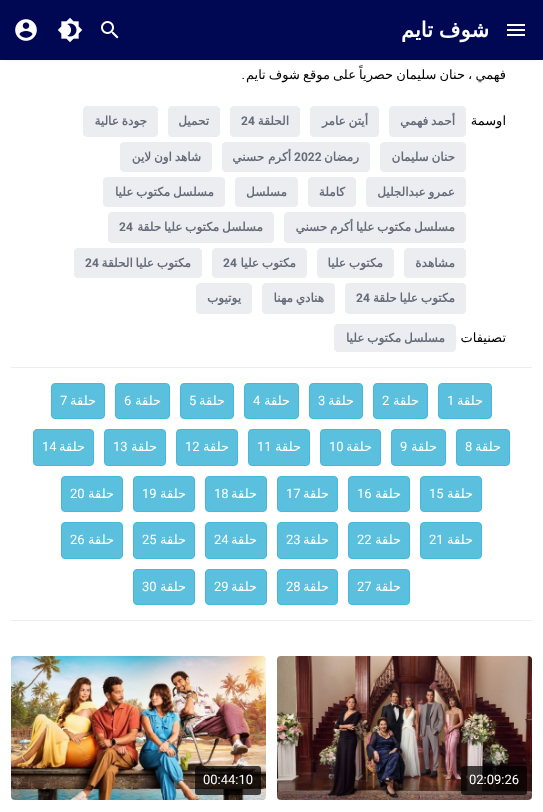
async function draw(canvas) {
	canvas.width = 543;
	canvas.height = 812;
	const c = canvas.getContext('2d');
	c.miterLimit = 4;
	c.fontKerning = 'normal';
	async function loadImage(src) {
		const img = new Image();
		img.src = src;
		await img.decode();
		return img;
	}

	c.fillStyle = '#fff';
	c.fillRect(0, 0, 543, 812);
	c.fillStyle = '#999';
	c.filter = 'blur(2.5px)';
	c.beginPath();
	c.rect(5, 7, 533, 50);
	c.fill();
	c.filter = 'none';
	c.fillStyle = '#000854';
	c.fillRect(0, 0, 543, 60);
	c.drawImage(await loadImage('img1.png'), 507, 24, 18, 12);
	c.wordSpacing = '-1px';
	c.direction = 'rtl';
	c.font = 'bold 21px DejaVu Sans';
	c.fillStyle = '#fff';
	c.fillText('شوف تايم', 489, 37);
	c.drawImage(await loadImage('img2.png'), 101, 21, 18, 18);
	c.drawImage(await loadImage('img3.png'), 57, 17, 26, 26);
	c.drawImage(await loadImage('img4.png'), 15, 19, 22, 22);
	c.fillStyle = '#eee';
	c.fillRect(11, 620, 521, 1);
	c.font = '13px DejaVu Sans';
	c.fillStyle = '#000';
	c.fillText('فهمي ، حنان سليمان حصرياً على موقع شوف تايم', 506, 79);
	c.wordSpacing = '0px';
	c.font = '13px Roboto';
	c.fillText('.', 245, 79);
	c.font = '13px DejaVu Sans';
	c.fillText('اوسمة', 506, 125);
	c.fillStyle = '#ecedf1';
	c.beginPath();
	c.roundRect(389.5, 106.5, 76, 30, 3.5);
	c.fill();
	c.strokeStyle = '#ecedf1';
	c.stroke();
	c.wordSpacing = '-1px';
	c.font = 'bold 12px DejaVu Sans';
	c.fillStyle = '#656c7a';
	c.fillText('أحمد فهمي', 455, 125);
	c.fillStyle = '#ecedf1';
	c.beginPath();
	c.roundRect(310.5, 106.5, 68, 30, 3.5);
	c.fill();
	c.stroke();
	c.fillStyle = '#656c7a';
	c.fillText('أيتن عامر', 368, 125);
	c.fillStyle = '#ecedf1';
	c.beginPath();
	c.roundRect(230.5, 106.5, 69, 30, 3.5);
	c.fill();
	c.stroke();
	c.wordSpacing = '0px';
	c.fillStyle = '#656c7a';
	c.fillText('الحلقة', 289, 125);
	c.direction = 'ltr';
	c.font = 'bold 12px Roboto';
	c.fillText('24', 241, 125);
	c.fillStyle = '#ecedf1';
	c.beginPath();
	c.roundRect(168.5, 106.5, 51, 30, 3.5);
	c.fill();
	c.stroke();
	c.direction = 'rtl';
	c.font = 'bold 12px DejaVu Sans';
	c.fillStyle = '#656c7a';
	c.fillText('تحميل', 209, 125);
	c.fillStyle = '#ecedf1';
	c.beginPath();
	c.roundRect(83.5, 106.5, 74, 30, 3.5);
	c.fill();
	c.stroke();
	c.wordSpacing = '-1px';
	c.fillStyle = '#656c7a';
	c.fillText('جودة عالية', 147, 125);
	c.fillStyle = '#ecedf1';
	c.beginPath();
	c.roundRect(380.5, 142.5, 85, 29, 3.5);
	c.fill();
	c.stroke();
	c.fillStyle = '#656c7a';
	c.fillText('حنان سليمان', 455, 161);
	c.fillStyle = '#ecedf1';
	c.beginPath();
	c.roundRect(222.5, 142.5, 147, 29, 3.5);
	c.fill();
	c.stroke();
	c.wordSpacing = '0px';
	c.fillStyle = '#656c7a';
	c.fillText('رمضان', 359, 161);
	c.direction = 'ltr';
	c.font = 'bold 12px Roboto';
	c.fillText('2022', 294, 161);
	c.direction = 'rtl';
	c.font = 'bold 12px DejaVu Sans';
	c.fillText('أكرم حسني', 291, 161);
	c.fillStyle = '#ecedf1';
	c.beginPath();
	c.roundRect(120.5, 142.5, 91, 29, 3.5);
	c.fill();
	c.stroke();
	c.wordSpacing = '-1px';
	c.fillStyle = '#656c7a';
	c.fillText('شاهد اون لاين', 201, 161);
	c.fillStyle = '#ecedf1';
	c.beginPath();
	c.roundRect(366.5, 177.5, 99, 29, 3.5);
	c.fill();
	c.stroke();
	c.fillStyle = '#656c7a';
	c.fillText('عمرو عبدالجليل', 455, 196);
	c.fillStyle = '#ecedf1';
	c.beginPath();
	c.roundRect(308.5, 177.5, 47, 29, 3.5);
	c.fill();
	c.stroke();
	c.wordSpacing = '0px';
	c.fillStyle = '#656c7a';
	c.fillText('كاملة', 345, 196);
	c.fillStyle = '#ecedf1';
	c.beginPath();
	c.roundRect(235.5, 177.5, 62, 29, 3.5);
	c.fill();
	c.stroke();
	c.fillStyle = '#656c7a';
	c.fillText('مسلسل', 287, 196);
	c.fillStyle = '#ecedf1';
	c.beginPath();
	c.roundRect(103.5, 177.5, 121, 29, 3.5);
	c.fill();
	c.stroke();
	c.wordSpacing = '-1px';
	c.fillStyle = '#656c7a';
	c.fillText('مسلسل مكتوب عليا', 214, 196);
	c.fillStyle = '#ecedf1';
	c.beginPath();
	c.roundRect(284.5, 212.5, 181, 30, 3.5);
	c.fill();
	c.stroke();
	c.fillStyle = '#656c7a';
	c.fillText('مسلسل مكتوب عليا أكرم حسني', 455, 231);
	c.fillStyle = '#ecedf1';
	c.beginPath();
	c.roundRect(108.5, 212.5, 165, 30, 3.5);
	c.fill();
	c.stroke();
	c.fillStyle = '#656c7a';
	c.fillText('مسلسل مكتوب عليا حلقة', 263, 231);
	c.wordSpacing = '0px';
	c.direction = 'ltr';
	c.font = 'bold 12px Roboto';
	c.fillText('24', 119, 231);
	c.fillStyle = '#ecedf1';
	c.beginPath();
	c.roundRect(404.5, 248.5, 61, 29, 3.5);
	c.fill();
	c.stroke();
	c.direction = 'rtl';
	c.font = 'bold 12px DejaVu Sans';
	c.fillStyle = '#656c7a';
	c.fillText('مشاهدة', 455, 267);
	c.fillStyle = '#ecedf1';
	c.beginPath();
	c.roundRect(317.5, 248.5, 76, 29, 3.5);
	c.fill();
	c.stroke();
	c.wordSpacing = '-1px';
	c.fillStyle = '#656c7a';
	c.fillText('مكتوب عليا', 383, 267);
	c.fillStyle = '#ecedf1';
	c.beginPath();
	c.roundRect(212.5, 248.5, 94, 29, 3.5);
	c.fill();
	c.stroke();
	c.fillStyle = '#656c7a';
	c.fillText('مكتوب عليا', 296, 267);
	c.wordSpacing = '0px';
	c.direction = 'ltr';
	c.font = 'bold 12px Roboto';
	c.fillText('24', 223, 267);
	c.fillStyle = '#ecedf1';
	c.beginPath();
	c.roundRect(74.5, 248.5, 127, 29, 3.5);
	c.fill();
	c.stroke();
	c.wordSpacing = '-1px';
	c.direction = 'rtl';
	c.font = 'bold 12px DejaVu Sans';
	c.fillStyle = '#656c7a';
	c.fillText('مكتوب عليا الحلقة', 191, 267);
	c.wordSpacing = '0px';
	c.direction = 'ltr';
	c.font = 'bold 12px Roboto';
	c.fillText('24', 85, 267);
	c.fillStyle = '#ecedf1';
	c.beginPath();
	c.roundRect(345.5, 283.5, 120, 30, 3.5);
	c.fill();
	c.stroke();
	c.wordSpacing = '-1px';
	c.direction = 'rtl';
	c.font = 'bold 12px DejaVu Sans';
	c.fillStyle = '#656c7a';
	c.fillText('مكتوب عليا حلقة', 455, 302);
	c.wordSpacing = '0px';
	c.direction = 'ltr';
	c.font = 'bold 12px Roboto';
	c.fillText('24', 356, 302);
	c.fillStyle = '#ecedf1';
	c.beginPath();
	c.roundRect(262.5, 283.5, 72, 30, 3.5);
	c.fill();
	c.stroke();
	c.wordSpacing = '-1px';
	c.direction = 'rtl';
	c.font = 'bold 12px DejaVu Sans';
	c.fillStyle = '#656c7a';
	c.fillText('هنادي مهنا', 324, 302);
	c.fillStyle = '#ecedf1';
	c.beginPath();
	c.roundRect(196.5, 283.5, 55, 30, 3.5);
	c.fill();
	c.stroke();
	c.wordSpacing = '0px';
	c.fillStyle = '#656c7a';
	c.fillText('يوتيوب', 241, 302);
	c.font = '13px DejaVu Sans';
	c.fillStyle = '#000';
	c.fillText('تصنيفات', 506, 342);
	c.fillStyle = '#ecedf1';
	c.beginPath();
	c.roundRect(334.5, 324.5, 121, 27, 3.5);
	c.fill();
	c.stroke();
	c.wordSpacing = '-1px';
	c.font = 'bold 12px DejaVu Sans';
	c.fillStyle = '#656c7a';
	c.fillText('مسلسل مكتوب عليا', 445, 342);
	c.fillStyle = '#eee';
	c.fillRect(11, 367, 521, 1);
	c.fillStyle = '#5bc0de';
	c.beginPath();
	c.roundRect(438.5, 383.5, 53, 35, 3.5);
	c.fill();
	c.strokeStyle = '#46b8da';
	c.stroke();
	c.wordSpacing = '0px';
	c.font = '13px DejaVu Sans';
	c.fillStyle = '#fff';
	c.fillText('حلقة', 483, 405);
	c.direction = 'ltr';
	c.font = '13px Roboto';
	c.fillText('1', 447, 405);
	c.fillStyle = '#5bc0de';
	c.beginPath();
	c.roundRect(373.5, 383.5, 54, 35, 3.5);
	c.fill();
	c.stroke();
	c.direction = 'rtl';
	c.font = '13px DejaVu Sans';
	c.fillStyle = '#fff';
	c.fillText('حلقة', 419, 405);
	c.direction = 'ltr';
	c.font = '13px Roboto';
	c.fillText('2', 382, 405);
	c.fillStyle = '#5bc0de';
	c.beginPath();
	c.roundRect(309.5, 383.5, 53, 35, 3.5);
	c.fill();
	c.stroke();
	c.direction = 'rtl';
	c.font = '13px DejaVu Sans';
	c.fillStyle = '#fff';
	c.fillText('حلقة', 354, 405);
	c.direction = 'ltr';
	c.font = '13px Roboto';
	c.fillText('3', 318, 405);
	c.fillStyle = '#5bc0de';
	c.beginPath();
	c.roundRect(244.5, 383.5, 54, 35, 3.5);
	c.fill();
	c.stroke();
	c.direction = 'rtl';
	c.font = '13px DejaVu Sans';
	c.fillStyle = '#fff';
	c.fillText('حلقة', 290, 405);
	c.direction = 'ltr';
	c.font = '13px Roboto';
	c.fillText('4', 253, 405);
	c.fillStyle = '#5bc0de';
	c.beginPath();
	c.roundRect(180.5, 383.5, 53, 35, 3.5);
	c.fill();
	c.stroke();
	c.direction = 'rtl';
	c.font = '13px DejaVu Sans';
	c.fillStyle = '#fff';
	c.fillText('حلقة', 225, 405);
	c.direction = 'ltr';
	c.font = '13px Roboto';
	c.fillText('5', 189, 405);
	c.fillStyle = '#5bc0de';
	c.beginPath();
	c.roundRect(115.5, 383.5, 54, 35, 3.5);
	c.fill();
	c.stroke();
	c.direction = 'rtl';
	c.font = '13px DejaVu Sans';
	c.fillStyle = '#fff';
	c.fillText('حلقة', 161, 405);
	c.direction = 'ltr';
	c.font = '13px Roboto';
	c.fillText('6', 124, 405);
	c.fillStyle = '#5bc0de';
	c.beginPath();
	c.roundRect(51.5, 383.5, 53, 35, 3.5);
	c.fill();
	c.stroke();
	c.direction = 'rtl';
	c.font = '13px DejaVu Sans';
	c.fillStyle = '#fff';
	c.fillText('حلقة', 96, 405);
	c.direction = 'ltr';
	c.font = '13px Roboto';
	c.fillText('7', 60, 405);
	c.fillStyle = '#5bc0de';
	c.beginPath();
	c.roundRect(456.5, 429.5, 53, 36, 3.5);
	c.fill();
	c.stroke();
	c.direction = 'rtl';
	c.font = '13px DejaVu Sans';
	c.fillStyle = '#fff';
	c.fillText('حلقة', 501, 451);
	c.direction = 'ltr';
	c.font = '13px Roboto';
	c.fillText('8', 465, 451);
	c.fillStyle = '#5bc0de';
	c.beginPath();
	c.roundRect(391.5, 429.5, 54, 36, 3.5);
	c.fill();
	c.stroke();
	c.direction = 'rtl';
	c.font = '13px DejaVu Sans';
	c.fillStyle = '#fff';
	c.fillText('حلقة', 437, 451);
	c.direction = 'ltr';
	c.font = '13px Roboto';
	c.fillText('9', 400, 451);
	c.fillStyle = '#5bc0de';
	c.beginPath();
	c.roundRect(320.5, 429.5, 60, 36, 3.5);
	c.fill();
	c.stroke();
	c.direction = 'rtl';
	c.font = '13px DejaVu Sans';
	c.fillStyle = '#fff';
	c.fillText('حلقة', 372, 451);
	c.direction = 'ltr';
	c.font = '13px Roboto';
	c.fillText('10', 329, 451);
	c.fillStyle = '#5bc0de';
	c.beginPath();
	c.roundRect(248.5, 429.5, 61, 36, 3.5);
	c.fill();
	c.stroke();
	c.direction = 'rtl';
	c.font = '13px DejaVu Sans';
	c.fillStyle = '#fff';
	c.fillText('حلقة', 301, 451);
	c.direction = 'ltr';
	c.font = '13px Roboto';
	c.fillText('11', 257, 451);
	c.fillStyle = '#5bc0de';
	c.beginPath();
	c.roundRect(176.5, 429.5, 61, 36, 3.5);
	c.fill();
	c.stroke();
	c.direction = 'rtl';
	c.font = '13px DejaVu Sans';
	c.fillStyle = '#fff';
	c.fillText('حلقة', 229, 451);
	c.direction = 'ltr';
	c.font = '13px Roboto';
	c.fillText('12', 185, 451);
	c.fillStyle = '#5bc0de';
	c.beginPath();
	c.roundRect(104.5, 429.5, 61, 36, 3.5);
	c.fill();
	c.stroke();
	c.direction = 'rtl';
	c.font = '13px DejaVu Sans';
	c.fillStyle = '#fff';
	c.fillText('حلقة', 157, 451);
	c.direction = 'ltr';
	c.font = '13px Roboto';
	c.fillText('13', 113, 451);
	c.fillStyle = '#5bc0de';
	c.beginPath();
	c.roundRect(33.5, 429.5, 60, 36, 3.5);
	c.fill();
	c.stroke();
	c.direction = 'rtl';
	c.font = '13px DejaVu Sans';
	c.fillStyle = '#fff';
	c.fillText('حلقة', 85, 451);
	c.direction = 'ltr';
	c.font = '13px Roboto';
	c.fillText('14', 42, 451);
	c.fillStyle = '#5bc0de';
	c.beginPath();
	c.roundRect(420.5, 476.5, 61, 35, 3.5);
	c.fill();
	c.stroke();
	c.direction = 'rtl';
	c.font = '13px DejaVu Sans';
	c.fillStyle = '#fff';
	c.fillText('حلقة', 473, 498);
	c.direction = 'ltr';
	c.font = '13px Roboto';
	c.fillText('15', 429, 498);
	c.fillStyle = '#5bc0de';
	c.beginPath();
	c.roundRect(348.5, 476.5, 61, 35, 3.5);
	c.fill();
	c.stroke();
	c.direction = 'rtl';
	c.font = '13px DejaVu Sans';
	c.fillStyle = '#fff';
	c.fillText('حلقة', 401, 498);
	c.direction = 'ltr';
	c.font = '13px Roboto';
	c.fillText('16', 357, 498);
	c.fillStyle = '#5bc0de';
	c.beginPath();
	c.roundRect(277.5, 476.5, 60, 35, 3.5);
	c.fill();
	c.stroke();
	c.direction = 'rtl';
	c.font = '13px DejaVu Sans';
	c.fillStyle = '#fff';
	c.fillText('حلقة', 329, 498);
	c.direction = 'ltr';
	c.font = '13px Roboto';
	c.fillText('17', 286, 498);
	c.fillStyle = '#5bc0de';
	c.beginPath();
	c.roundRect(205.5, 476.5, 61, 35, 3.5);
	c.fill();
	c.stroke();
	c.direction = 'rtl';
	c.font = '13px DejaVu Sans';
	c.fillStyle = '#fff';
	c.fillText('حلقة', 257, 498);
	c.direction = 'ltr';
	c.font = '13px Roboto';
	c.fillText('18', 214, 498);
	c.fillStyle = '#5bc0de';
	c.beginPath();
	c.roundRect(133.5, 476.5, 61, 35, 3.5);
	c.fill();
	c.stroke();
	c.direction = 'rtl';
	c.font = '13px DejaVu Sans';
	c.fillStyle = '#fff';
	c.fillText('حلقة', 186, 498);
	c.direction = 'ltr';
	c.font = '13px Roboto';
	c.fillText('19', 142, 498);
	c.fillStyle = '#5bc0de';
	c.beginPath();
	c.roundRect(61.5, 476.5, 61, 35, 3.5);
	c.fill();
	c.stroke();
	c.direction = 'rtl';
	c.font = '13px DejaVu Sans';
	c.fillStyle = '#fff';
	c.fillText('حلقة', 114, 498);
	c.direction = 'ltr';
	c.font = '13px Roboto';
	c.fillText('20', 70, 498);
	c.fillStyle = '#5bc0de';
	c.beginPath();
	c.roundRect(420.5, 522.5, 61, 36, 3.5);
	c.fill();
	c.stroke();
	c.direction = 'rtl';
	c.font = '13px DejaVu Sans';
	c.fillStyle = '#fff';
	c.fillText('حلقة', 473, 544);
	c.direction = 'ltr';
	c.font = '13px Roboto';
	c.fillText('21', 429, 544);
	c.fillStyle = '#5bc0de';
	c.beginPath();
	c.roundRect(348.5, 522.5, 61, 36, 3.5);
	c.fill();
	c.stroke();
	c.direction = 'rtl';
	c.font = '13px DejaVu Sans';
	c.fillStyle = '#fff';
	c.fillText('حلقة', 401, 544);
	c.direction = 'ltr';
	c.font = '13px Roboto';
	c.fillText('22', 357, 544);
	c.fillStyle = '#5bc0de';
	c.beginPath();
	c.roundRect(277.5, 522.5, 60, 36, 3.5);
	c.fill();
	c.stroke();
	c.direction = 'rtl';
	c.font = '13px DejaVu Sans';
	c.fillStyle = '#fff';
	c.fillText('حلقة', 329, 544);
	c.direction = 'ltr';
	c.font = '13px Roboto';
	c.fillText('23', 286, 544);
	c.fillStyle = '#5bc0de';
	c.beginPath();
	c.roundRect(205.5, 522.5, 61, 36, 3.5);
	c.fill();
	c.stroke();
	c.direction = 'rtl';
	c.font = '13px DejaVu Sans';
	c.fillStyle = '#fff';
	c.fillText('حلقة', 257, 544);
	c.direction = 'ltr';
	c.font = '13px Roboto';
	c.fillText('24', 214, 544);
	c.fillStyle = '#5bc0de';
	c.beginPath();
	c.roundRect(133.5, 522.5, 61, 36, 3.5);
	c.fill();
	c.stroke();
	c.direction = 'rtl';
	c.font = '13px DejaVu Sans';
	c.fillStyle = '#fff';
	c.fillText('حلقة', 186, 544);
	c.direction = 'ltr';
	c.font = '13px Roboto';
	c.fillText('25', 142, 544);
	c.fillStyle = '#5bc0de';
	c.beginPath();
	c.roundRect(61.5, 522.5, 61, 36, 3.5);
	c.fill();
	c.stroke();
	c.direction = 'rtl';
	c.font = '13px DejaVu Sans';
	c.fillStyle = '#fff';
	c.fillText('حلقة', 114, 544);
	c.direction = 'ltr';
	c.font = '13px Roboto';
	c.fillText('26', 70, 544);
	c.fillStyle = '#5bc0de';
	c.beginPath();
	c.roundRect(348.5, 569.5, 61, 35, 3.5);
	c.fill();
	c.stroke();
	c.direction = 'rtl';
	c.font = '13px DejaVu Sans';
	c.fillStyle = '#fff';
	c.fillText('حلقة', 401, 591);
	c.direction = 'ltr';
	c.font = '13px Roboto';
	c.fillText('27', 357, 591);
	c.fillStyle = '#5bc0de';
	c.beginPath();
	c.roundRect(277.5, 569.5, 60, 35, 3.5);
	c.fill();
	c.stroke();
	c.direction = 'rtl';
	c.font = '13px DejaVu Sans';
	c.fillStyle = '#fff';
	c.fillText('حلقة', 329, 591);
	c.direction = 'ltr';
	c.font = '13px Roboto';
	c.fillText('28', 286, 591);
	c.fillStyle = '#5bc0de';
	c.beginPath();
	c.roundRect(205.5, 569.5, 61, 35, 3.5);
	c.fill();
	c.stroke();
	c.direction = 'rtl';
	c.font = '13px DejaVu Sans';
	c.fillStyle = '#fff';
	c.fillText('حلقة', 257, 591);
	c.direction = 'ltr';
	c.font = '13px Roboto';
	c.fillText('29', 214, 591);
	c.fillStyle = '#5bc0de';
	c.beginPath();
	c.roundRect(133.5, 569.5, 61, 35, 3.5);
	c.fill();
	c.stroke();
	c.direction = 'rtl';
	c.font = '13px DejaVu Sans';
	c.fillStyle = '#fff';
	c.fillText('حلقة', 186, 591);
	c.direction = 'ltr';
	c.font = '13px Roboto';
	c.fillText('30', 142, 591);
	c.drawImage(await loadImage('img5.png'), 277, 656, 255, 144);
	c.fillStyle = '#000000b3';
	c.beginPath();
	c.roundRect(461, 766, 66, 29, 3);
	c.fill();
	c.fillStyle = '#fff';
	c.fillText('02:09:26', 469, 784);
	c.drawImage(await loadImage('img6.png'), 11, 656, 255, 144);
	c.fillStyle = '#000000b3';
	c.beginPath();
	c.roundRect(195, 766, 66, 29, 3);
	c.fill();
	c.fillStyle = '#fff';
	c.fillText('00:44:10', 203, 784);
}

draw(document.querySelector('canvas'));
